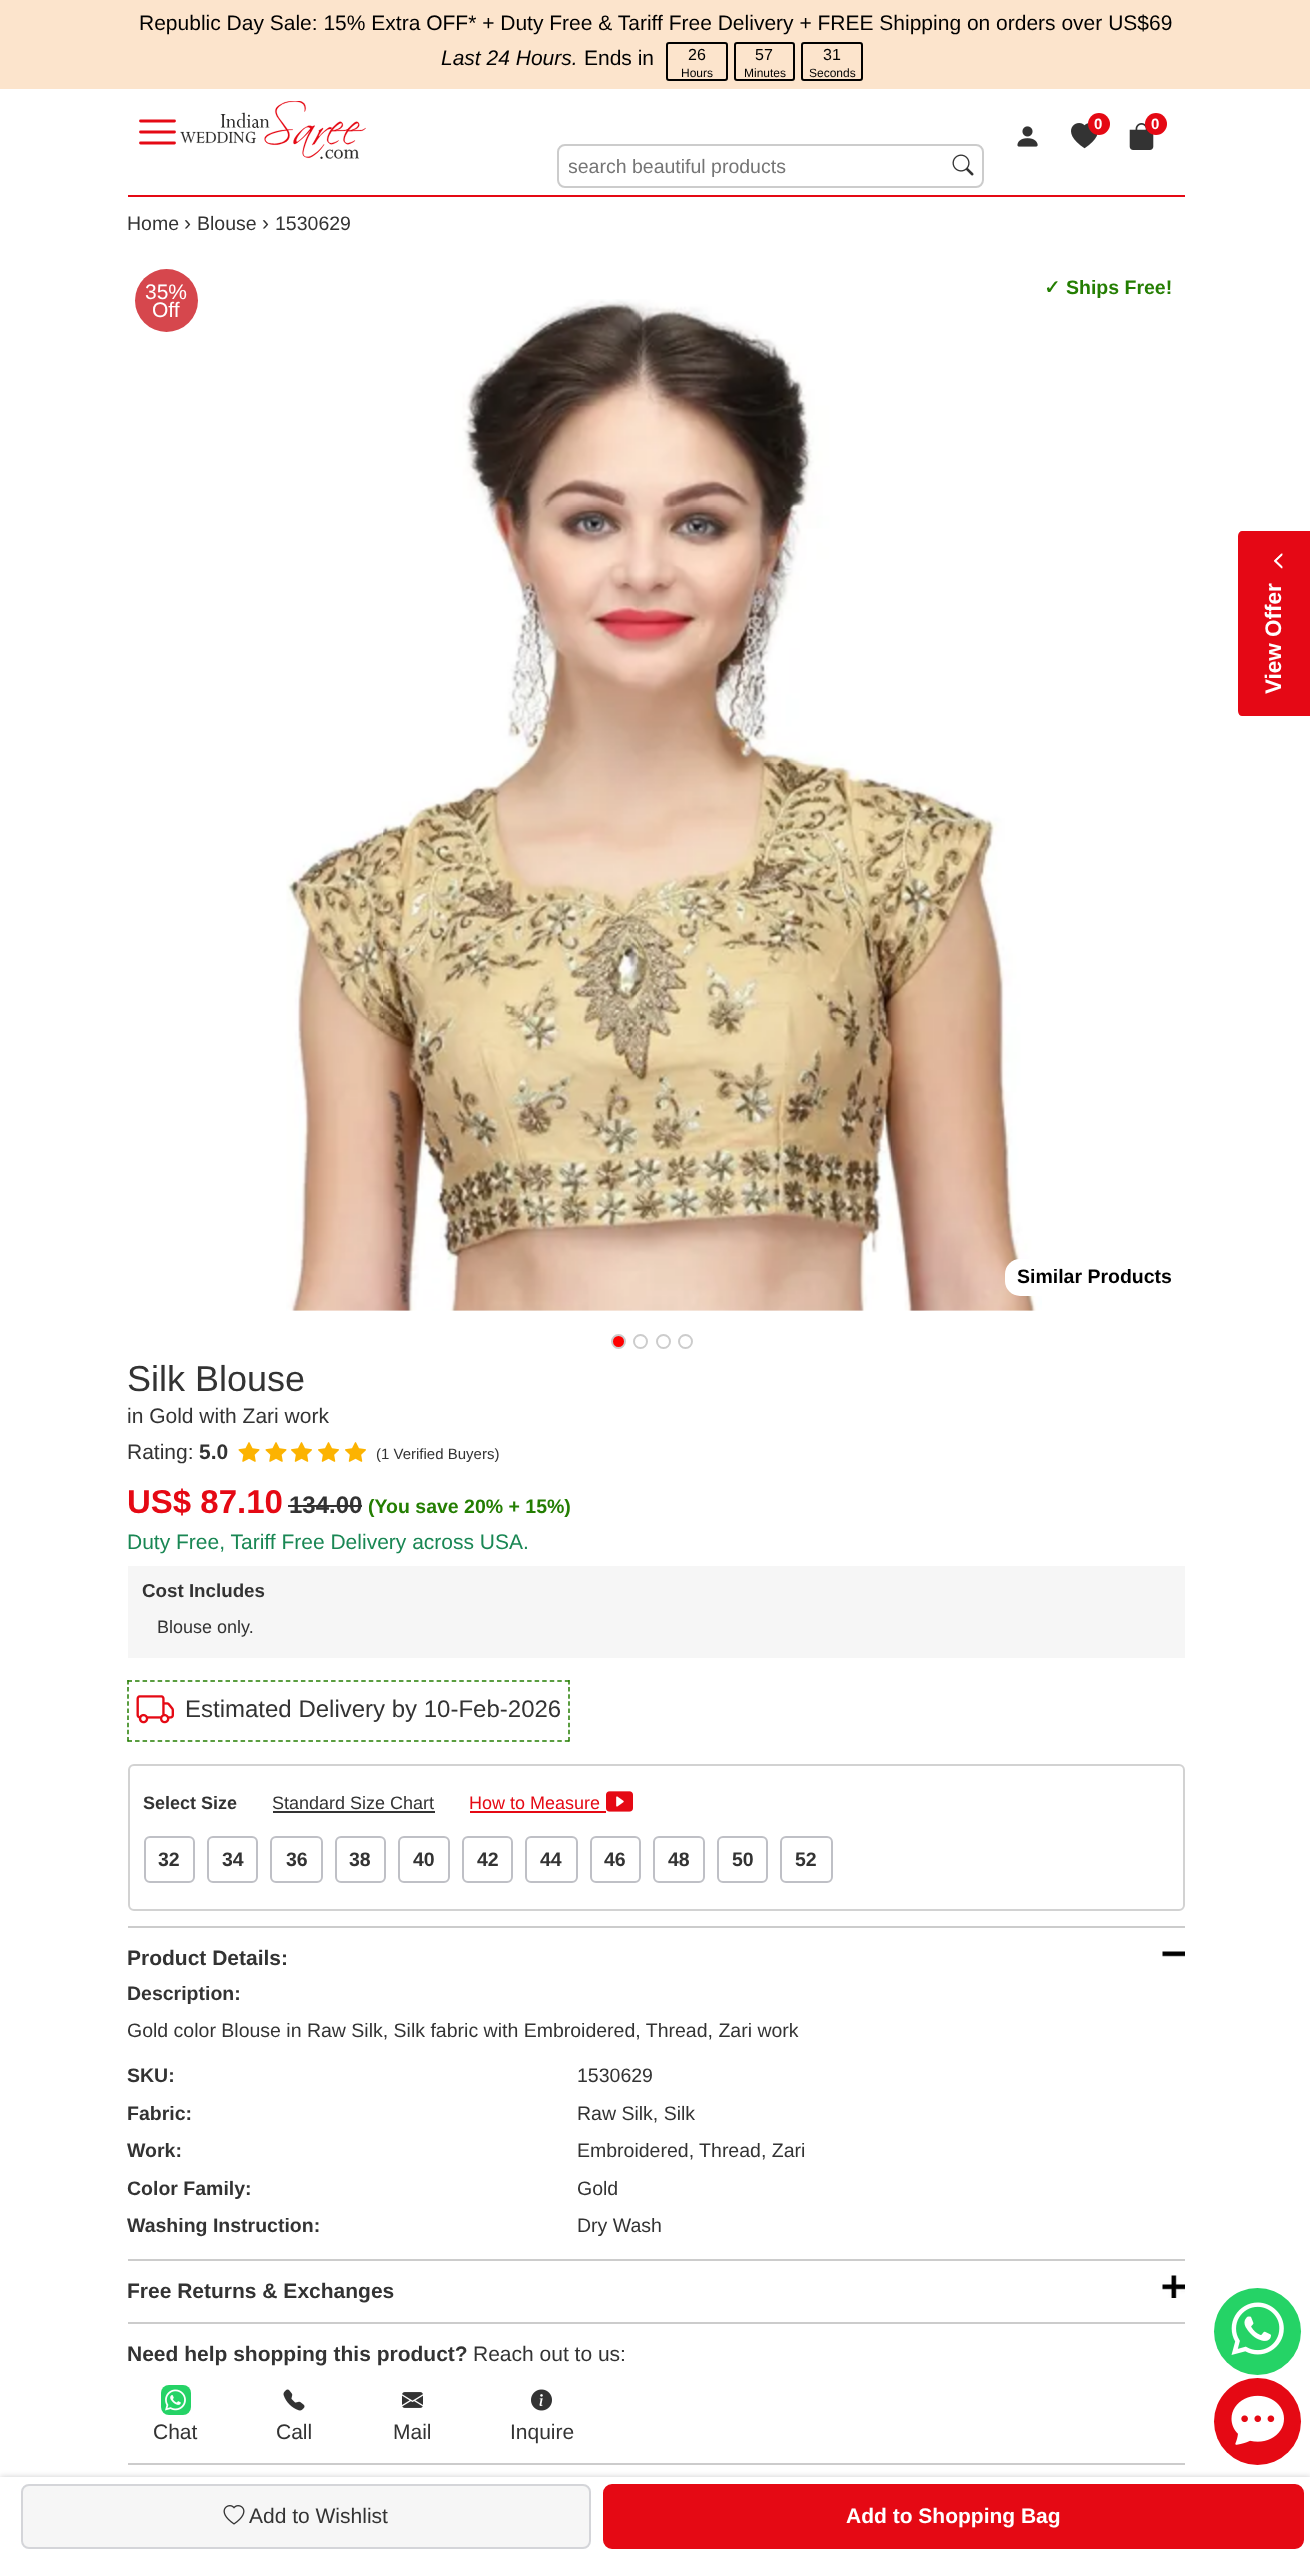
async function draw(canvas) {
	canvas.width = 1310;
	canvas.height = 2554;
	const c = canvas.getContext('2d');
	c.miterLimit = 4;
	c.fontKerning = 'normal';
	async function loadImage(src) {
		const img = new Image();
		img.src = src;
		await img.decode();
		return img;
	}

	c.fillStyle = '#fff';
	c.fillRect(0, 0, 1310, 2554);
	c.fillStyle = '#fce4cc';
	c.fillRect(0, 0, 1310, 89);
	c.font = '21px Liberation Sans';
	c.fillStyle = '#000';
	c.fillText('Republic Day Sale: 15% Extra OFF* + Duty Free & Tariff Free Delivery + FREE Shipping on orders over US$69', 139, 30);
	c.font = 'italic 21px Liberation Sans';
	c.fillText('Last 24 Hours.', 441, 65);
	c.font = '21px Liberation Sans';
	c.fillText('Ends in', 584, 65);
	c.beginPath();
	c.roundRect(667, 43, 60, 37, 2);
	c.strokeStyle = '#000';
	c.lineWidth = 2;
	c.stroke();
	c.font = '16px Liberation Sans';
	c.fillText('26', 688, 60);
	c.font = '12px Liberation Sans';
	c.fillText('Hours', 681, 77);
	c.beginPath();
	c.roundRect(735, 43, 59, 37, 2);
	c.stroke();
	c.font = '16px Liberation Sans';
	c.fillText('57', 755, 60);
	c.font = '12px Liberation Sans';
	c.fillText('Minutes', 744, 77);
	c.beginPath();
	c.roundRect(802, 43, 60, 37, 2);
	c.stroke();
	c.font = '16px Liberation Sans';
	c.fillText('31', 823, 60);
	c.font = '12px Liberation Sans';
	c.fillText('Seconds', 809, 77);
	c.fillStyle = '#e50914';
	c.fillRect(128, 195, 1057, 2);
	c.beginPath();
	c.moveTo(140.5, 121);
	c.lineTo(174.5, 121);
	c.moveTo(140.5, 132);
	c.lineTo(174.5, 132);
	c.moveTo(140.5, 143);
	c.lineTo(174.5, 143);
	c.strokeStyle = '#e50914';
	c.lineWidth = 2.8;
	c.lineCap = 'round';
	c.stroke();
	c.drawImage(await loadImage('img1.png'), 180, 101, 186, 58);
	c.drawImage(await loadImage('img2.png'), 1071, 123, 27, 26);
	c.beginPath();
	c.arc(1099, 124, 11, 0, 2 * Math.PI);
	c.fill();
	c.font = 'bold 15px Liberation Sans';
	c.fillStyle = '#fff';
	c.fillText('0', 1094, 129);
	c.drawImage(await loadImage('img3.png'), 1129, 123, 25, 27);
	c.fillStyle = '#e50914';
	c.beginPath();
	c.arc(1156, 124, 11, 0, 2 * Math.PI);
	c.fill();
	c.fillStyle = '#fff';
	c.fillText('0', 1151, 129);
	c.drawImage(await loadImage('img4.png'), 1017, 126, 21, 21);
	c.beginPath();
	c.roundRect(558, 145, 425, 42, 7);
	c.strokeStyle = '#ccc';
	c.lineWidth = 2;
	c.stroke();
	c.save();
	c.beginPath();
	c.rect(569, 155, 357, 22);
	c.clip();
	c.font = '19.5px Liberation Sans';
	c.fillStyle = '#757575';
	c.fillText('search beautiful products', 568, 173);
	c.restore();
	c.drawImage(await loadImage('img5.png'), 952, 154, 22, 22);
	c.font = '19.5px Liberation Sans';
	c.fillStyle = '#333';
	c.fillText('Home', 127, 230);
	c.font = '21px Liberation Sans';
	c.fillText('›', 184, 230);
	c.font = '19.5px Liberation Sans';
	c.fillText('Blouse', 197, 230);
	c.font = '21px Liberation Sans';
	c.fillText('›', 262, 230);
	c.font = '19.5px Liberation Sans';
	c.fillText('1530629', 275, 230);
	c.fillStyle = '#d6474d';
	c.beginPath();
	c.arc(166.5, 300.5, 31.5, 0, 2 * Math.PI);
	c.fill();
	c.font = '21px Liberation Sans';
	c.fillStyle = '#fff';
	c.fillText('35%', 145, 299);
	c.fillText('Off', 152, 317);
	c.drawImage(await loadImage('img6.png'), 286, 299, 756, 1012);
	c.fillStyle = '#f00';
	c.beginPath();
	c.arc(618.5, 1341.5, 6.5, 0, 2 * Math.PI);
	c.fill();
	c.stroke();
	c.beginPath();
	c.arc(640.5, 1341.5, 6.5, 0, 2 * Math.PI);
	c.stroke();
	c.beginPath();
	c.arc(663.5, 1341.5, 6.5, 0, 2 * Math.PI);
	c.stroke();
	c.beginPath();
	c.arc(685.5, 1341.5, 6.5, 0, 2 * Math.PI);
	c.stroke();
	c.font = 'bold 19.5px DejaVu Sans';
	c.fillStyle = '#247e02';
	c.fillText('✓', 1044, 294);
	c.font = 'bold 19.5px Liberation Sans';
	c.fillText('Ships Free!', 1066, 294);
	c.fillStyle = '#fff';
	c.beginPath();
	c.roundRect(1005, 1259, 180, 37, [15, 0, 0, 15]);
	c.fill();
	c.fillStyle = '#000';
	c.fillText('Similar Products', 1017, 1283);
	c.font = '36px Liberation Sans';
	c.fillStyle = '#333';
	c.fillText('Silk Blouse', 127, 1391);
	c.font = '21px Liberation Sans';
	c.fillText('in Gold with Zari work', 127, 1423);
	c.fillText('Rating:', 127, 1459);
	c.font = 'bold 21px Liberation Sans';
	c.fillText('5.0', 199, 1459);
	c.drawImage(await loadImage('img7.png'), 238, 1442, 22, 20);
	c.drawImage(await loadImage('img7.png'), 265, 1442, 22, 20);
	c.drawImage(await loadImage('img8.png'), 291, 1442, 21, 20);
	c.drawImage(await loadImage('img8.png'), 318, 1442, 21, 20);
	c.drawImage(await loadImage('img8.png'), 345, 1442, 21, 20);
	c.font = '15px Liberation Sans';
	c.fillText('(1 Verified Buyers)', 376, 1459);
	c.font = 'bold 33px Liberation Sans';
	c.fillStyle = '#e50914';
	c.fillText('US$ 87.10', 127, 1513);
	c.font = 'bold 24px Liberation Sans';
	c.fillStyle = '#333';
	c.fillText('134.00', 289, 1513);
	c.fillRect(288, 1505, 74, 2);
	c.font = 'bold 19.5px Liberation Sans';
	c.fillStyle = '#247e02';
	c.fillText('(You save 20% + 15%)', 368, 1513);
	c.font = '21px Liberation Sans';
	c.fillStyle = '#198754';
	c.fillText('Duty Free, Tariff Free Delivery across USA.', 127, 1549);
	c.fillStyle = '#f6f6f6';
	c.fillRect(128, 1566, 1057, 92);
	c.font = 'bold 18.75px Liberation Sans';
	c.fillStyle = '#333';
	c.fillText('Cost Includes', 142, 1597);
	c.font = '18px Liberation Sans';
	c.fillText('Blouse only.', 157, 1633);
	c.beginPath();
	c.moveTo(127.5, 1681);
	c.lineTo(570, 1681);
	c.strokeStyle = '#247e02';
	c.lineWidth = 1.5;
	c.lineCap = 'butt';
	c.setLineDash([4.5, 3.04]);
	c.stroke();
	c.beginPath();
	c.moveTo(569, 1680);
	c.lineTo(569, 1741.5);
	c.setLineDash([4.5, 2.62]);
	c.stroke();
	c.beginPath();
	c.moveTo(127.5, 1741);
	c.lineTo(570, 1741);
	c.setLineDash([4.5, 3.04]);
	c.stroke();
	c.beginPath();
	c.moveTo(128, 1680);
	c.lineTo(128, 1741.5);
	c.setLineDash([4.5, 2.62]);
	c.stroke();
	c.drawImage(await loadImage('img9.png'), 136, 1695, 38, 29);
	c.font = '24px Liberation Sans';
	c.fillText('Estimated Delivery by 10-Feb-2026', 185, 1717);
	c.beginPath();
	c.roundRect(129, 1765, 1055, 145, 5);
	c.strokeStyle = '#d2d2d2';
	c.lineWidth = 2;
	c.setLineDash([]);
	c.stroke();
	c.font = 'bold 18px Liberation Sans';
	c.fillText('Select Size', 143, 1809);
	c.font = '18px Liberation Sans';
	c.fillText('Standard Size Chart', 272, 1809);
	c.fillRect(273, 1811, 162, 2);
	c.fillStyle = '#e50914';
	c.fillText('How to Measure', 469, 1809);
	c.fillRect(470, 1811, 136, 2);
	c.drawImage(await loadImage('img10.png'), 606, 1791, 27, 21);
	c.beginPath();
	c.roundRect(145, 1837, 49, 45, 5);
	c.strokeStyle = '#bfc0c6';
	c.stroke();
	c.font = 'bold 19.5px Liberation Sans';
	c.fillStyle = '#333';
	c.fillText('32', 158, 1866);
	c.beginPath();
	c.roundRect(208, 1837, 49, 45, 5);
	c.stroke();
	c.fillText('34', 222, 1866);
	c.beginPath();
	c.roundRect(271, 1837, 51, 45, 5);
	c.stroke();
	c.fillText('36', 286, 1866);
	c.beginPath();
	c.roundRect(336, 1837, 49, 45, 5);
	c.stroke();
	c.fillText('38', 349, 1866);
	c.beginPath();
	c.roundRect(399, 1837, 50, 45, 5);
	c.stroke();
	c.fillText('40', 413, 1866);
	c.beginPath();
	c.roundRect(463, 1837, 49, 45, 5);
	c.stroke();
	c.fillText('42', 477, 1866);
	c.beginPath();
	c.roundRect(526, 1837, 51, 45, 5);
	c.stroke();
	c.fillText('44', 540, 1866);
	c.beginPath();
	c.roundRect(591, 1837, 49, 45, 5);
	c.stroke();
	c.fillText('46', 604, 1866);
	c.beginPath();
	c.roundRect(654, 1837, 50, 45, 5);
	c.stroke();
	c.fillText('48', 668, 1866);
	c.beginPath();
	c.roundRect(718, 1837, 49, 45, 5);
	c.stroke();
	c.fillText('50', 732, 1866);
	c.beginPath();
	c.roundRect(781, 1837, 51, 45, 5);
	c.stroke();
	c.fillText('52', 795, 1866);
	c.fillStyle = '#ccc';
	c.fillRect(128, 1926, 1057, 2);
	c.font = 'bold 21px Liberation Sans';
	c.fillStyle = '#333';
	c.fillText('Product Details:', 127, 1965);
	c.drawImage(await loadImage('img11.png'), 1162, 1951, 23, 6);
	c.font = 'bold 19.5px Liberation Sans';
	c.fillText('Description:', 127, 2000);
	c.font = '19.5px Liberation Sans';
	c.fillText('Gold color Blouse in Raw Silk, Silk fabric with Embroidered, Thread, Zari work', 127, 2037);
	c.font = 'bold 19.5px Liberation Sans';
	c.fillText('SKU:', 127, 2082);
	c.font = '19.5px Liberation Sans';
	c.fillText('1530629', 577, 2082);
	c.font = 'bold 19.5px Liberation Sans';
	c.fillText('Fabric:', 127, 2120);
	c.font = '19.5px Liberation Sans';
	c.fillText('Raw Silk, Silk', 577, 2120);
	c.font = 'bold 19.5px Liberation Sans';
	c.fillText('Work:', 127, 2157);
	c.font = '19.5px Liberation Sans';
	c.fillText('Embroidered, Thread, Zari', 577, 2157);
	c.font = 'bold 19.5px Liberation Sans';
	c.fillText('Color Family:', 127, 2195);
	c.font = '19.5px Liberation Sans';
	c.fillText('Gold', 577, 2195);
	c.font = 'bold 19.5px Liberation Sans';
	c.fillText('Washing Instruction:', 127, 2232);
	c.font = '19.5px Liberation Sans';
	c.fillText('Dry Wash', 577, 2232);
	c.fillStyle = '#ccc';
	c.fillRect(128, 2259, 1057, 2);
	c.font = 'bold 21px Liberation Sans';
	c.fillStyle = '#333';
	c.fillText('Free Returns & Exchanges', 127, 2298);
	c.drawImage(await loadImage('img12.png'), 1162, 2275, 23, 23);
	c.fillStyle = '#ccc';
	c.fillRect(128, 2322, 1057, 2);
	c.fillStyle = '#333';
	c.fillText('Need help shopping this product?', 127, 2361);
	c.font = '21px Liberation Sans';
	c.fillText('Reach out to us:', 473, 2361);
	c.fillStyle = '#25d366';
	c.beginPath();
	c.roundRect(161, 2385, 30, 30, 8);
	c.fill();
	c.drawImage(await loadImage('img13.png'), 165, 2389, 21, 22);
	c.fillStyle = '#333';
	c.fillText('Chat', 153, 2439);
	c.drawImage(await loadImage('img14.png'), 283, 2389, 22, 22);
	c.fillText('Call', 276, 2439);
	c.drawImage(await loadImage('img15.png'), 402, 2392, 21, 16);
	c.fillText('Mail', 393, 2439);
	c.drawImage(await loadImage('img16.png'), 531, 2389, 21, 22);
	c.fillText('Inquire', 510, 2439);
	c.fillStyle = '#ccc';
	c.fillRect(128, 2463, 1057, 2);
	c.fillStyle = '#00000033';
	c.filter = 'blur(3px)';
	c.beginPath();
	c.rect(0, 2477, 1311, 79);
	c.fill();
	c.filter = 'none';
	c.fillStyle = '#fff';
	c.fillRect(0, 2477, 1310, 77);
	c.fillStyle = '#f6f6f6';
	c.beginPath();
	c.roundRect(22, 2485, 568, 63, 7);
	c.fill();
	c.strokeStyle = '#d4d5d9';
	c.stroke();
	c.drawImage(await loadImage('img17.png'), 223, 2505, 22, 20);
	c.fillStyle = '#333';
	c.fillText('Add to Wishlist', 249, 2523);
	c.fillStyle = '#e50914';
	c.beginPath();
	c.roundRect(604, 2485, 699, 63, 8);
	c.fill();
	c.strokeStyle = '#e50914';
	c.stroke();
	c.font = 'bold 21px Liberation Sans';
	c.fillStyle = '#fff';
	c.fillText('Add to Shopping Bag', 846, 2523);
	c.fillStyle = '#e50815';
	c.beginPath();
	c.moveTo(1238, 711);
	c.lineTo(1238, 536);
	c.bezierCurveTo(1238, 533, 1240, 531, 1242, 531);
	c.lineTo(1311, 531);
	c.lineTo(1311, 716);
	c.lineTo(1242, 716);
	c.bezierCurveTo(1240, 716, 1238, 714, 1238, 711);
	c.closePath();
	c.fill();
	c.drawImage(await loadImage('img18.png'), 1274, 553, 9, 16);
	c.font = 'bold 22.5px Liberation Sans';
	c.fillStyle = '#fff';
	c.save();
	c.translate(1281, 694);
	c.rotate(-90 * Math.PI / 180);
	c.fillText('View Offer', 0, 0);
	c.restore();
	c.fillStyle = '#25d366';
	c.beginPath();
	c.arc(1257.5, 2331.5, 43.5, 0, 2 * Math.PI);
	c.fill();
	c.drawImage(await loadImage('img19.png'), 1231, 2302, 53, 53);
	c.fillStyle = '#e50914';
	c.beginPath();
	c.arc(1257.5, 2421.5, 43.5, 0, 2 * Math.PI);
	c.fill();
	c.drawImage(await loadImage('img20.png'), 1231, 2395, 53, 50);
}

draw(document.querySelector('canvas'));
